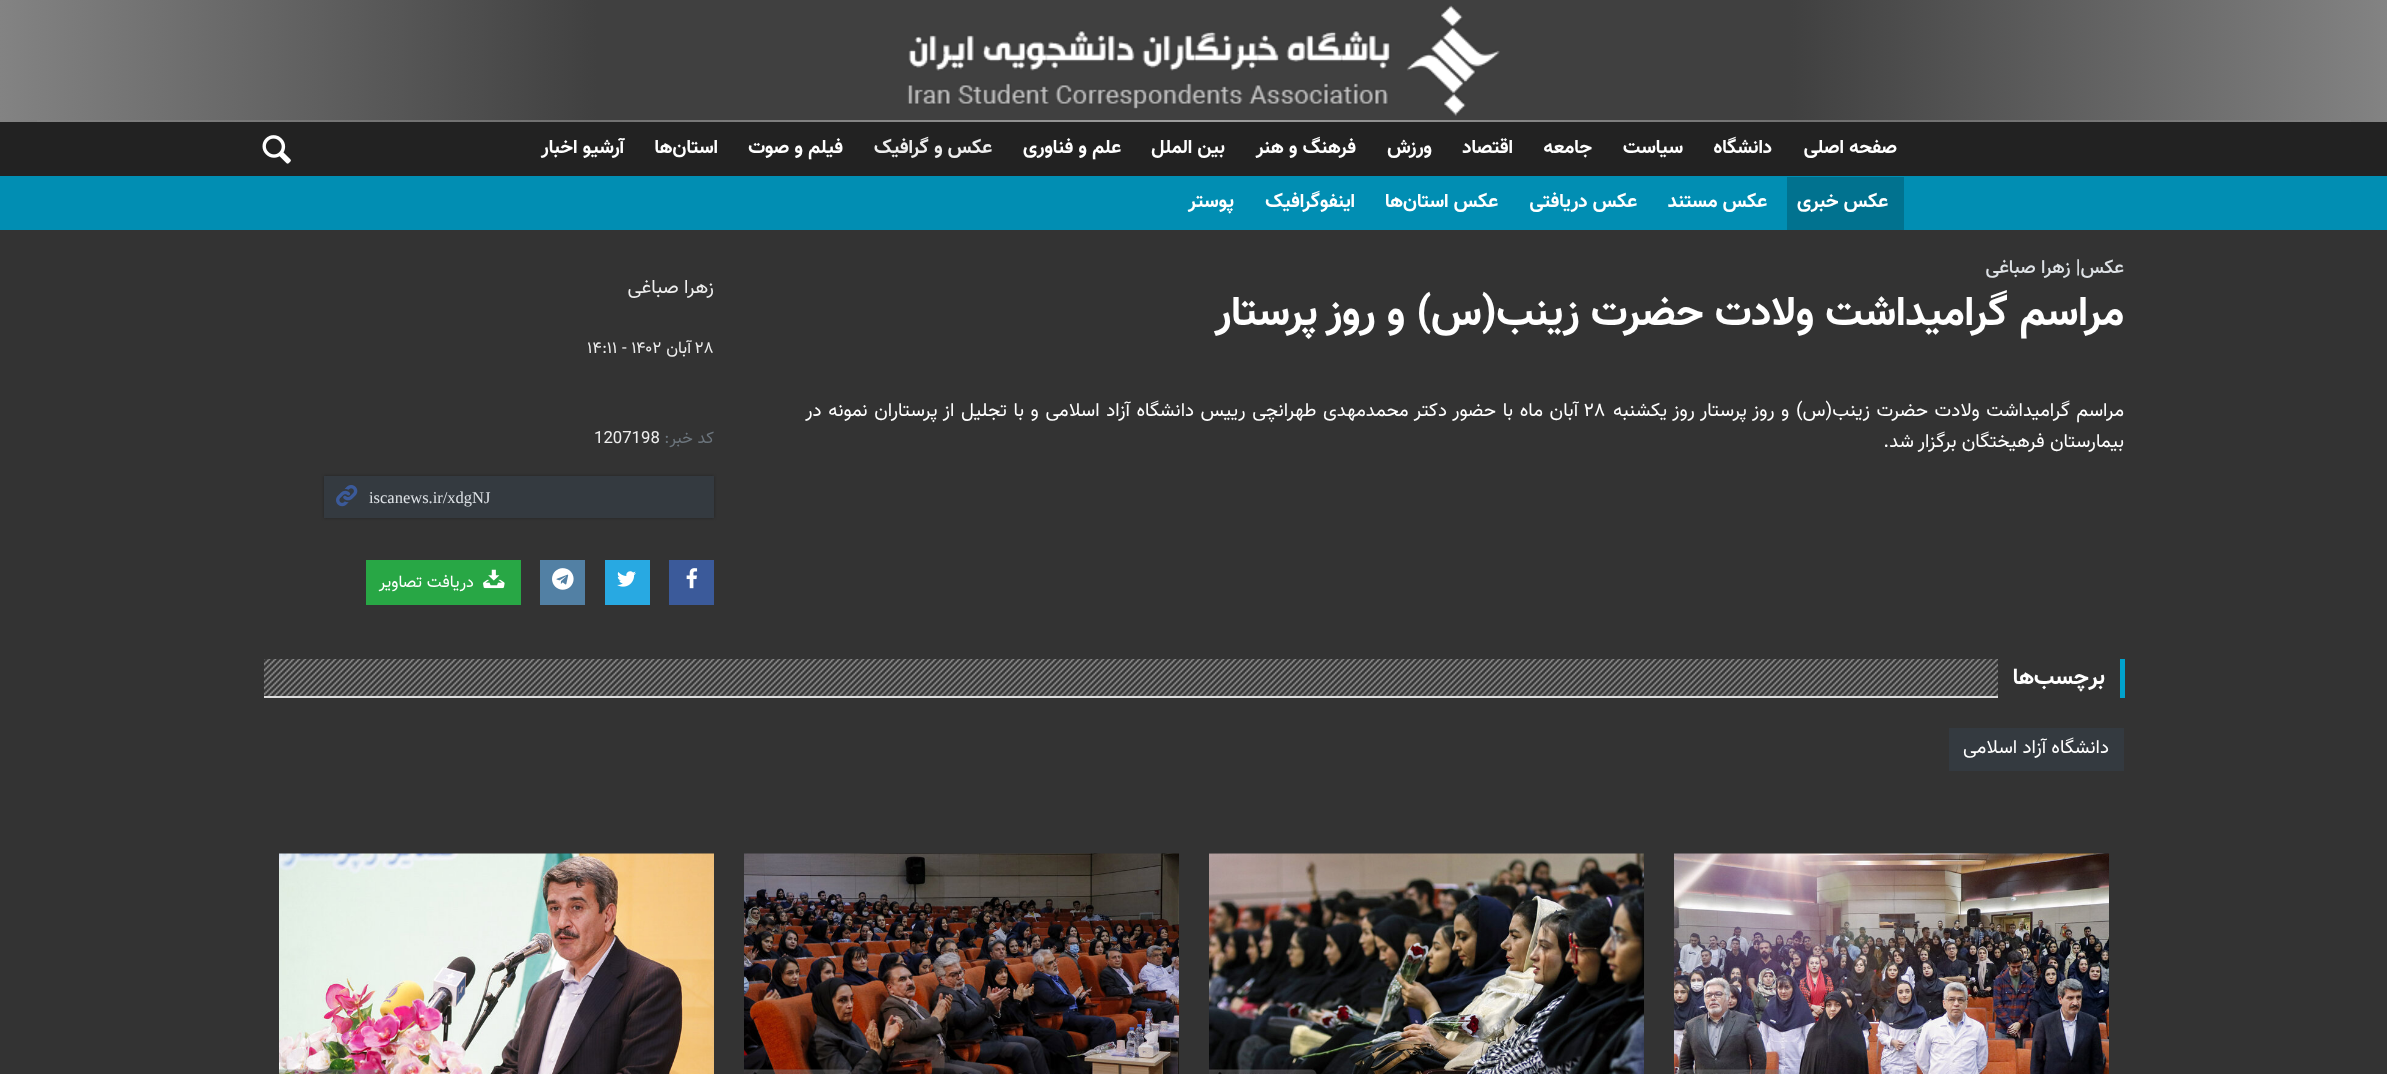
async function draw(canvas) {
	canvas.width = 2387;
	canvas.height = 1074;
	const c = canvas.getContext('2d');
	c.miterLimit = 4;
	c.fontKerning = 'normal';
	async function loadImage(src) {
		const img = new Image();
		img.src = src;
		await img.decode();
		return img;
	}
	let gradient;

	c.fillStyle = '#333';
	c.fillRect(0, 0, 2387, 1074);
	gradient = c.createLinearGradient(0, 88, 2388, 88);
	gradient.addColorStop(0, '#838383');
	gradient.addColorStop(0.25, '#404040');
	gradient.addColorStop(0.75, '#404040');
	gradient.addColorStop(1, '#838383');
	c.fillStyle = gradient;
	c.fillRect(0, 0, 2387, 122);
	c.drawImage(await loadImage('img1.png'), 907, 5, 593, 111);
	c.fillStyle = '#222';
	c.fillRect(0, 122, 2387, 54);
	gradient = c.createLinearGradient(-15, 121, 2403, 121);
	gradient.addColorStop(0, '#ffffff00');
	gradient.addColorStop(0.5, '#ffffff80');
	gradient.addColorStop(1, '#ffffff00');
	c.fillStyle = gradient;
	c.fillRect(37, 120, 2314, 2);
	c.direction = 'rtl';
	c.font = 'bold 19.5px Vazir';
	c.fillStyle = '#eee';
	c.fillText('عکس و گرافیک', 992, 153);
	c.fillStyle = '#018eb3';
	c.fillRect(0, 176, 2387, 54);
	c.fillStyle = '#01728f';
	c.fillRect(1787, 177, 117, 53);
	c.fillStyle = '#fff';
	for (const [text, x, y] of [
		['عکس خبری', 1888, 207],
		['عکس مستند', 1767, 207],
		['عکس دریافتی', 1637, 207],
		['عکس استان‌ها', 1498, 207],
		['اینفوگرافیک', 1355, 207],
		['پوستر', 1234, 207],
		['صفحه اصلی', 1897, 153],
		['دانشگاه', 1772, 153],
		['سیاست', 1683, 153],
		['جامعه', 1592, 153],
		['اقتصاد', 1513, 153],
		['ورزش', 1432, 153],
		['فرهنگ و هنر', 1356, 153],
		['بین الملل', 1225, 153],
		['علم و فناوری', 1121, 153],
		['فیلم و صوت', 843, 153],
		['استان‌ها', 718, 153],
		['آرشیو اخبار', 624, 153],
	]) {
		c.fillText(text, x, y);
	}
	c.drawImage(await loadImage('img2.png'), 262, 135, 29, 29);
	c.font = '500 19.2px Vazir';
	c.fillStyle = '#dee2e6';
	c.fillText('عکس| زهرا صباغی', 2124, 273);
	c.font = 'bold 42px Vazir';
	c.fillStyle = '#fff';
	c.fillText('مراسم گرامیداشت ولادت حضرت زینب(س) و روز پرستار', 2124, 325);
	c.font = '19.5px Vazir';
	c.fillStyle = '#eee';
	c.fillText('زهرا صباغی', 714, 293);
	c.direction = 'ltr';
	c.font = '16.75px Vazir';
	c.fillText('۲۸', 695, 353);
	c.direction = 'rtl';
	c.fillText('آبان', 691, 353);
	c.direction = 'ltr';
	c.fillText('۱۴:۱۱ - ۱۴۰۲', 587, 353);
	c.direction = 'rtl';
	c.fillStyle = '#6c757d';
	c.fillText('کد خبر:', 714, 443);
	c.direction = 'ltr';
	c.fillStyle = '#eee';
	c.fillText('1207198', 594, 443);
	c.fillStyle = '#222';
	c.filter = 'blur(1.5px)';
	c.beginPath();
	c.rect(324, 476, 390, 42);
	c.fill();
	c.filter = 'none';
	c.fillStyle = '#343a40';
	c.fillRect(324, 476, 390, 42);
	c.font = '16.5px Liberation Serif';
	c.fillStyle = '#dee2e6';
	c.fillText('iscanews.ir/xdgNJ', 369, 503);
	c.drawImage(await loadImage('img3.png'), 336, 485, 22, 22);
	c.fillStyle = '#3b5a9a';
	c.fillRect(669, 560, 45, 45);
	c.drawImage(await loadImage('img4.png'), 686, 568, 12, 21);
	c.fillStyle = '#28a9e2';
	c.fillRect(605, 560, 45, 45);
	c.drawImage(await loadImage('img5.png'), 617, 571, 19, 16);
	c.fillStyle = '#5280a4';
	c.fillRect(540, 560, 45, 45);
	c.drawImage(await loadImage('img6.png'), 552, 568, 22, 22);
	c.fillStyle = '#28a745';
	c.fillRect(366, 560, 155, 45);
	c.drawImage(await loadImage('img7.png'), 483, 569, 22, 20);
	c.direction = 'rtl';
	c.font = '16.75px Vazir';
	c.fillStyle = '#fff';
	c.fillText('دریافت تصاویر', 474, 587);
	c.wordSpacing = '1.3px';
	c.font = '19.2px Vazir';
	c.fillText('مراسم گرامیداشت ولادت حضرت زینب(س) و روز پرستار روز یکشنبه', 2124, 416);
	c.wordSpacing = '0px';
	c.direction = 'ltr';
	c.fillText('۲۸', 1584, 416);
	c.wordSpacing = '1.3px';
	c.direction = 'rtl';
	c.fillText('آبان ماه با حضور دکتر محمدمهدی طهرانچی رییس دانشگاه آزاد اسلامی و با تجلیل از پرستاران نمونه در', 1578, 416);
	c.wordSpacing = '0px';
	c.fillText('بیمارستان فرهیختگان برگزار شد.', 2124, 447);
	c.drawImage(await loadImage('img8.png'), 264, 659, 1734, 37);
	c.fillStyle = '#ddd';
	c.fillRect(264, 696, 1734, 2);
	c.fillStyle = '#01a2cc';
	c.fillRect(2120, 659, 5, 39);
	c.font = 'bold 23px Vazir';
	c.fillStyle = '#fff';
	c.fillText('برچسب‌ها', 2105, 684);
	c.fillStyle = '#343a40';
	c.fillRect(1949, 728, 175, 43);
	c.font = '19.2px Vazir';
	c.fillStyle = '#fff';
	c.fillText('دانشگاه آزاد اسلامی', 2109, 753);
	c.drawImage(await loadImage('img9.png'), 1674, 853, 435, 221);
	c.drawImage(await loadImage('img10.png'), 1209, 853, 435, 221);
	c.drawImage(await loadImage('img11.png'), 744, 853, 435, 221);
	c.drawImage(await loadImage('img12.png'), 279, 853, 435, 221);
}

draw(document.querySelector('canvas'));
